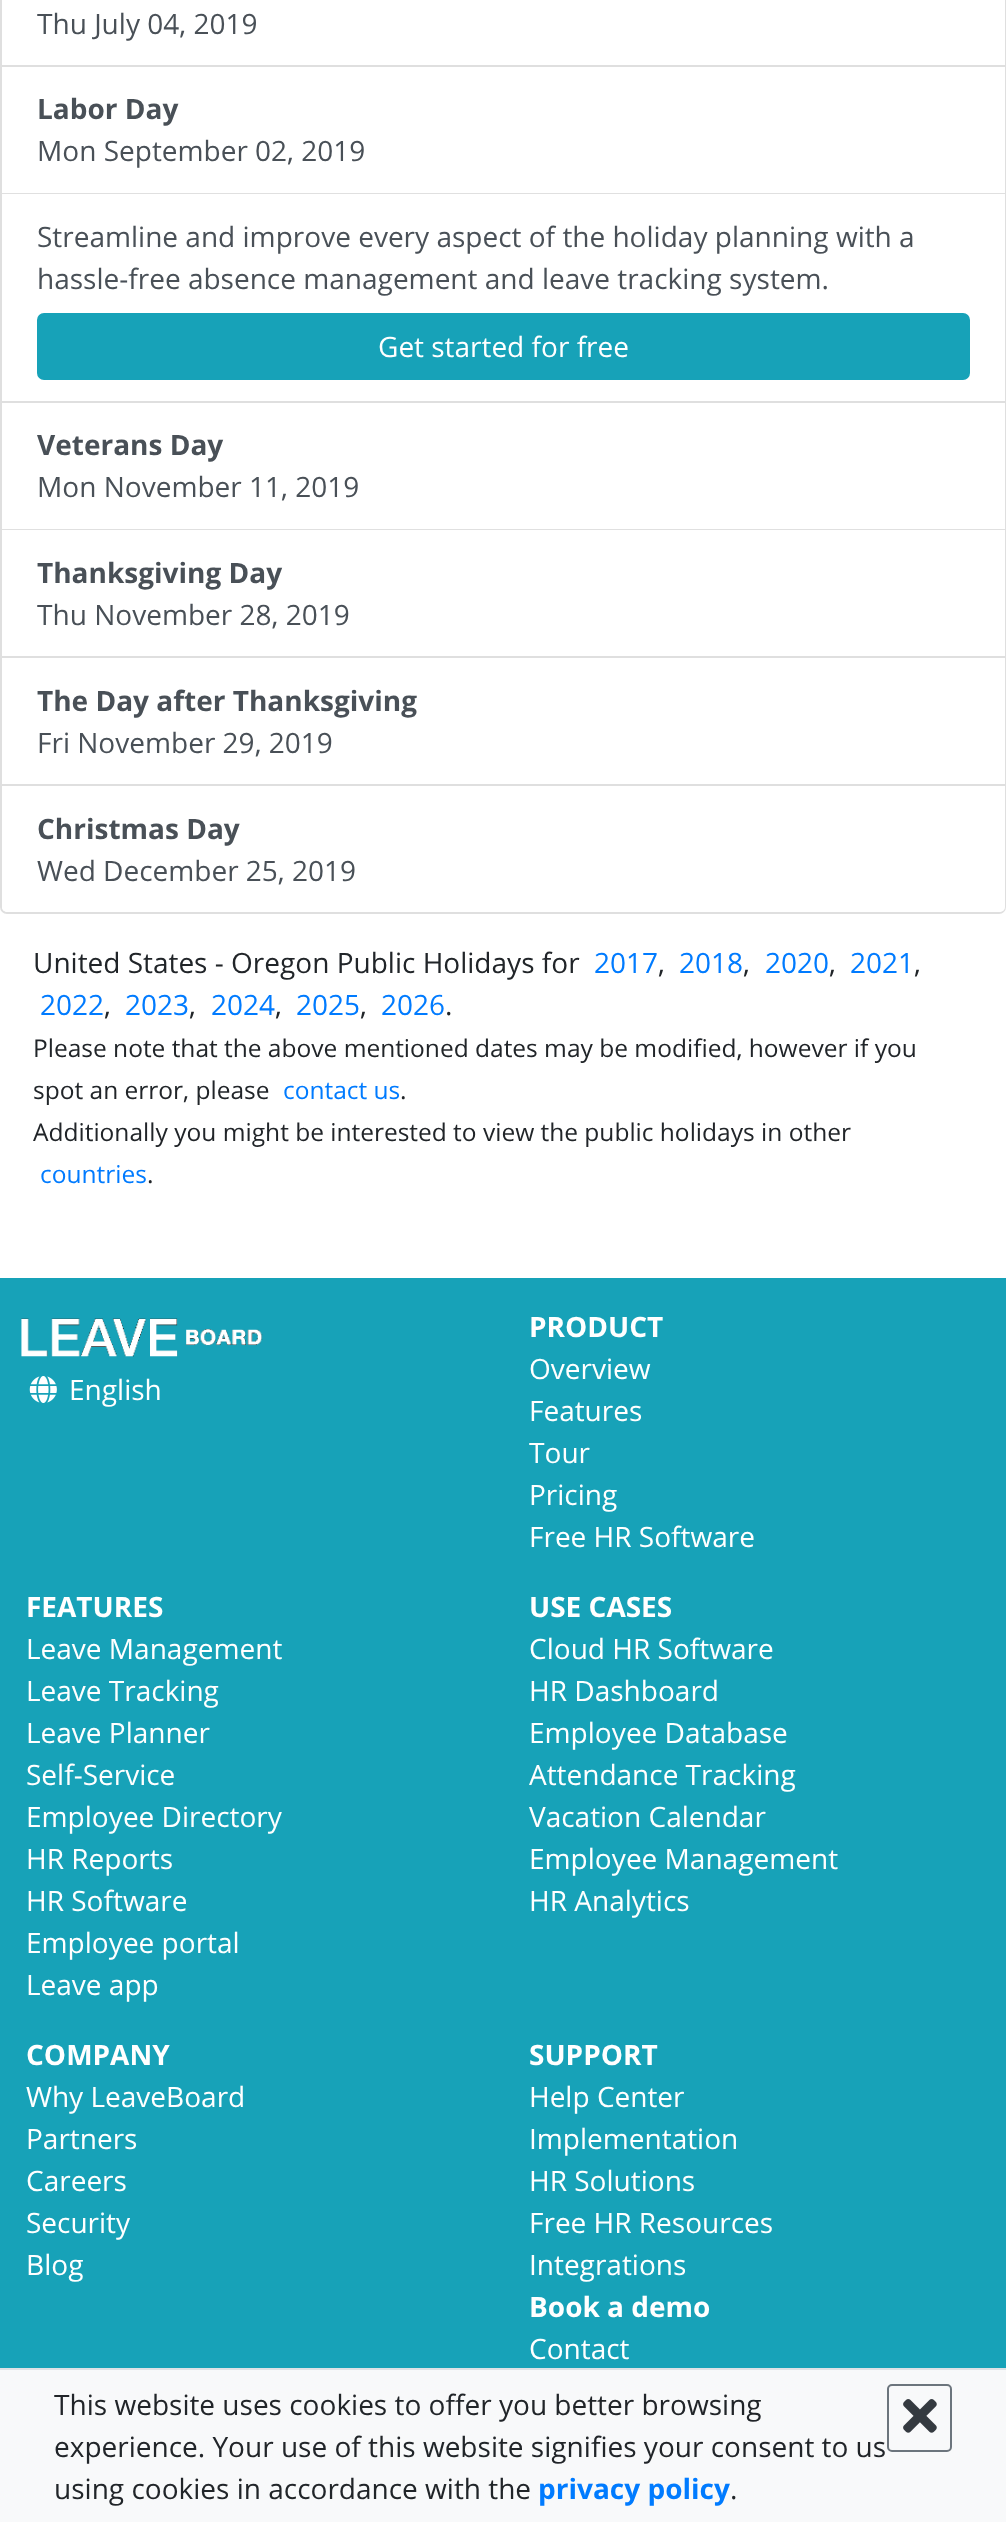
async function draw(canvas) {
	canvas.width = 1006;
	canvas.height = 2522;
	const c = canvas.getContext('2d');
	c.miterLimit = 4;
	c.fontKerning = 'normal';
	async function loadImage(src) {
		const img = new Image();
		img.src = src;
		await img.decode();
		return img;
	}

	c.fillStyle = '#fff';
	c.fillRect(0, 0, 1006, 2522);
	c.beginPath();
	c.roundRect(1, -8, 1004, 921, 6);
	c.strokeStyle = '#dfdfdf';
	c.lineWidth = 2;
	c.stroke();
	c.fillRect(1004, 0, 1, 65);
	c.fillStyle = '#dfdfdf';
	c.fillRect(2, 65, 1003, 2);
	c.font = '28px Open Sans';
	c.fillStyle = '#495057';
	c.fillText('Thu July 04, 2019', 37, 34);
	c.fillStyle = '#fff';
	c.fillRect(1004, 67, 1, 334);
	c.fillStyle = '#0000001f';
	c.fillRect(2, 193, 1003, 1);
	c.font = 'bold 28px Open Sans';
	c.fillStyle = '#495057';
	c.fillText('Labor Day', 37, 119);
	c.font = '28px Open Sans';
	c.fillText('Mon September 02, 2019', 37, 161);
	c.fillStyle = '#dfdfdf';
	c.fillRect(2, 401, 1003, 2);
	c.fillStyle = '#495057';
	c.fillText('Streamline and improve every aspect of the holiday planning with a', 37, 247);
	c.fillText('hassle-free absence management and leave tracking system.', 37, 289);
	c.fillStyle = '#17a2b8';
	c.beginPath();
	c.roundRect(38, 314, 931, 65, 6);
	c.fill();
	c.strokeStyle = '#17a2b8';
	c.stroke();
	c.fillStyle = '#fff';
	c.fillText('Get started for free', 378, 357);
	c.fillRect(1004, 403, 1, 253);
	c.fillStyle = '#0000001f';
	c.fillRect(2, 529, 1003, 1);
	c.font = 'bold 28px Open Sans';
	c.fillStyle = '#495057';
	c.fillText('Veterans Day', 37, 455);
	c.font = '28px Open Sans';
	c.fillText('Mon November 11, 2019', 37, 497);
	c.fillStyle = '#dfdfdf';
	c.fillRect(2, 656, 1003, 2);
	c.font = 'bold 28px Open Sans';
	c.fillStyle = '#495057';
	c.fillText('Thanksgiving Day', 37, 583);
	c.font = '28px Open Sans';
	c.fillText('Thu November 28, 2019', 37, 625);
	c.fillStyle = '#fff';
	c.fillRect(1004, 658, 1, 126);
	c.fillStyle = '#dfdfdf';
	c.fillRect(2, 784, 1003, 2);
	c.font = 'bold 28px Open Sans';
	c.fillStyle = '#495057';
	c.fillText('The Day after Thanksgiving', 37, 711);
	c.font = '28px Open Sans';
	c.fillText('Fri November 29, 2019', 37, 753);
	c.fillStyle = '#fff';
	c.beginPath();
	c.roundRect(2, 786, 1003, 126, [0, 0, 5, 5]);
	c.fill();
	c.font = 'bold 28px Open Sans';
	c.fillStyle = '#495057';
	c.fillText('Christmas Day', 37, 839);
	c.font = '28px Open Sans';
	c.fillText('Wed December 25, 2019', 37, 881);
	c.fillStyle = '#212529';
	c.fillText('United States - Oregon Public Holidays for', 33, 973);
	c.fillStyle = '#007bff';
	c.fillText('2017', 594, 973);
	c.fillStyle = '#212529';
	c.fillText(',', 658, 973);
	c.fillStyle = '#007bff';
	c.fillText('2018', 679, 973);
	c.fillStyle = '#212529';
	c.fillText(',', 743, 973);
	c.fillStyle = '#007bff';
	c.fillText('2020', 765, 973);
	c.fillStyle = '#212529';
	c.fillText(',', 829, 973);
	c.fillStyle = '#007bff';
	c.fillText('2021', 850, 973);
	c.fillStyle = '#212529';
	c.fillText(',', 914, 973);
	c.fillStyle = '#007bff';
	c.fillText('2022', 40, 1015);
	c.fillStyle = '#212529';
	c.fillText(',', 104, 1015);
	c.fillStyle = '#007bff';
	c.fillText('2023', 125, 1015);
	c.fillStyle = '#212529';
	c.fillText(',', 189, 1015);
	c.fillStyle = '#007bff';
	c.fillText('2024', 211, 1015);
	c.fillStyle = '#212529';
	c.fillText(',', 275, 1015);
	c.fillStyle = '#007bff';
	c.fillText('2025', 296, 1015);
	c.fillStyle = '#212529';
	c.fillText(',', 360, 1015);
	c.fillStyle = '#007bff';
	c.fillText('2026', 381, 1015);
	c.fillStyle = '#212529';
	c.fillText('.', 445, 1015);
	c.font = '24.5px Open Sans';
	c.fillText('Please note that the above mentioned dates may be modified, however if you', 33, 1057);
	c.fillText('spot an error, please', 33, 1099);
	c.fillStyle = '#007bff';
	c.fillText('contact us', 283, 1099);
	c.fillStyle = '#212529';
	c.fillText('.', 400, 1099);
	c.fillText('Additionally you might be interested to view the public holidays in other', 33, 1141);
	c.fillStyle = '#007bff';
	c.fillText('countries', 40, 1183);
	c.fillStyle = '#212529';
	c.fillText('.', 147, 1183);
	c.fillStyle = '#17a2b8';
	c.fillRect(0, 1278, 1006, 1090);
	c.drawImage(await loadImage('img1.png'), 21, 1318, 242, 39);
	c.drawImage(await loadImage('img2.png'), 29, 1376, 28, 27);
	c.font = '28px Open Sans';
	c.fillStyle = '#fff';
	c.fillText('English', 69, 1400);
	c.font = 'bold 28px Open Sans';
	c.fillText('PRODUCT', 529, 1337);
	c.font = '28px Open Sans';
	for (const [text, x, y] of [
		['Overview', 529, 1379],
		['Features', 529, 1421],
		['Tour', 529, 1463],
		['Pricing', 529, 1505],
		['Free HR Software', 529, 1547],
	]) {
		c.fillText(text, x, y);
	}
	c.font = 'bold 28px Open Sans';
	c.fillText('FEATURES', 26, 1617);
	c.font = '28px Open Sans';
	for (const [text, x, y] of [
		['Leave Management', 26, 1659],
		['Leave Tracking', 26, 1701],
		['Leave Planner', 26, 1743],
		['Self-Service', 26, 1785],
		['Employee Directory', 26, 1827],
		['HR Reports', 26, 1869],
		['HR Software', 26, 1911],
		['Employee portal', 26, 1953],
		['Leave app', 26, 1995],
	]) {
		c.fillText(text, x, y);
	}
	c.font = 'bold 28px Open Sans';
	c.fillText('USE CASES', 529, 1617);
	c.font = '28px Open Sans';
	for (const [text, x, y] of [
		['Cloud HR Software', 529, 1659],
		['HR Dashboard', 529, 1701],
		['Employee Database', 529, 1743],
		['Attendance Tracking', 529, 1785],
		['Vacation Calendar', 529, 1827],
		['Employee Management', 529, 1869],
		['HR Analytics', 529, 1911],
	]) {
		c.fillText(text, x, y);
	}
	c.font = 'bold 28px Open Sans';
	c.fillText('COMPANY', 26, 2065);
	c.font = '28px Open Sans';
	for (const [text, x, y] of [
		['Why LeaveBoard', 26, 2107],
		['Partners', 26, 2149],
		['Careers', 26, 2191],
		['Security', 26, 2233],
		['Blog', 26, 2275],
	]) {
		c.fillText(text, x, y);
	}
	c.font = 'bold 28px Open Sans';
	c.fillText('SUPPORT', 529, 2065);
	c.font = '28px Open Sans';
	for (const [text, x, y] of [
		['Help Center', 529, 2107],
		['Implementation', 529, 2149],
		['HR Solutions', 529, 2191],
		['Free HR Resources', 529, 2233],
		['Integrations', 529, 2275],
	]) {
		c.fillText(text, x, y);
	}
	c.font = 'bold 28px Open Sans';
	c.fillText('Book a demo', 529, 2317);
	c.font = '28px Open Sans';
	c.fillText('Contact', 529, 2359);
	c.fillStyle = '#f8f9fa';
	c.fillRect(0, 2370, 1006, 152);
	c.fillStyle = '#dee2e6';
	c.fillRect(0, 2368, 1006, 2);
	c.fillStyle = '#212529';
	c.fillText('This website uses cookies to offer you better browsing', 54, 2415);
	c.beginPath();
	c.roundRect(888, 2385, 63, 66, 4);
	c.strokeStyle = '#6c757d';
	c.stroke();
	c.drawImage(await loadImage('img3.png'), 903, 2399, 34, 34);
	c.fillText('experience. Your use of this website signifies your consent to us', 54, 2457);
	c.fillText('using cookies in accordance with the', 54, 2499);
	c.font = 'bold 28px Open Sans';
	c.fillStyle = '#007bff';
	c.fillText('privacy policy', 538, 2499);
	c.font = '28px Open Sans';
	c.fillStyle = '#212529';
	c.fillText('.', 730, 2499);
}

draw(document.querySelector('canvas'));
